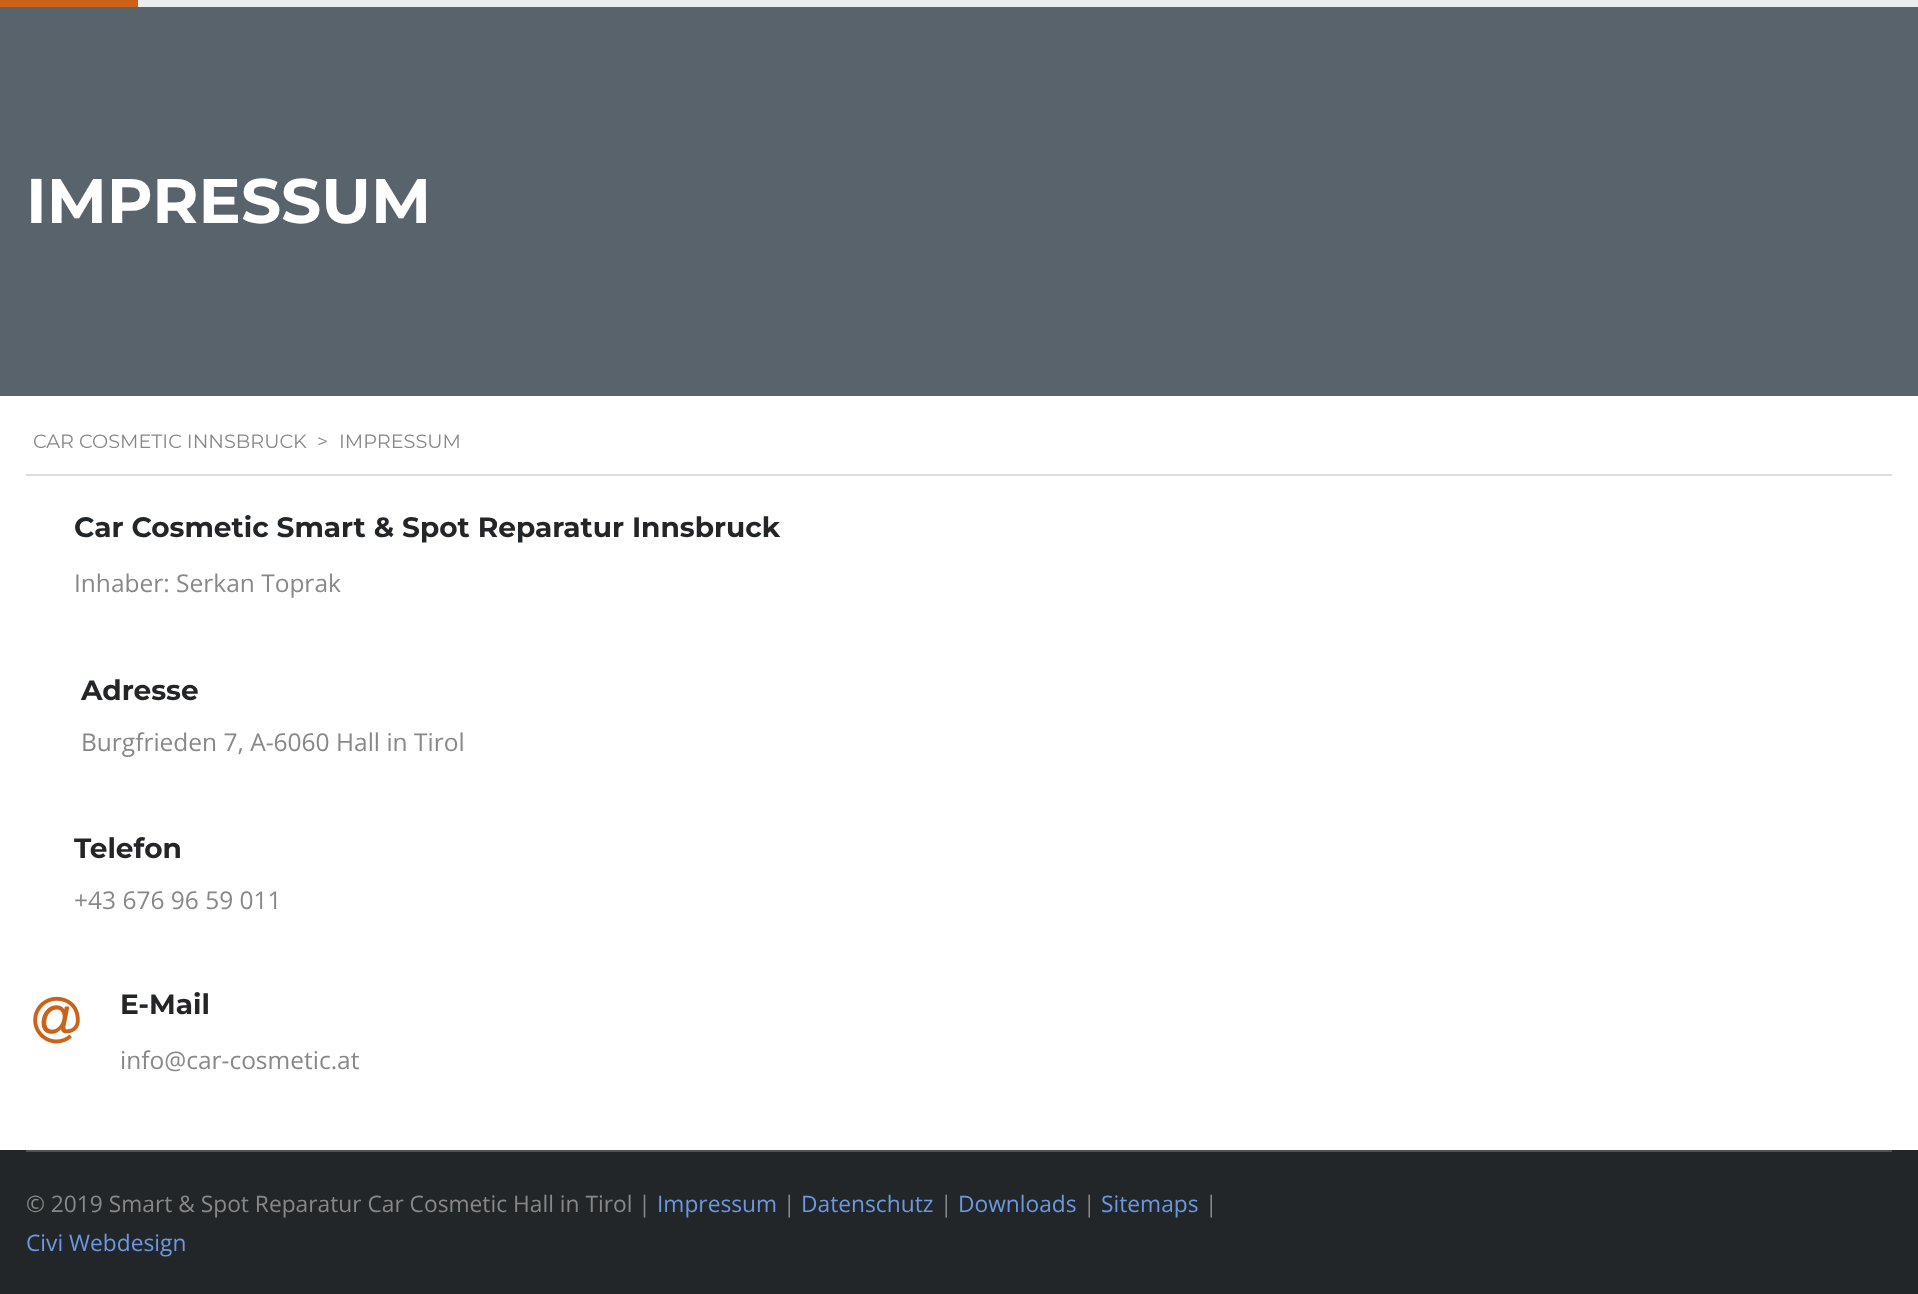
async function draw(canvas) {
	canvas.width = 1918;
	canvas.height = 1294;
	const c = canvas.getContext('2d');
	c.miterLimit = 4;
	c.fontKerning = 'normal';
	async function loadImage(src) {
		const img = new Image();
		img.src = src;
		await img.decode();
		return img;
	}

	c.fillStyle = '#fff';
	c.fillRect(0, 0, 1918, 1294);
	for (const [x, y, w, h, color] of [
		[138, 0, 1780, 7, '#eaedf0'],
		[0, 0, 138, 7, '#cc6119'],
		[0, 7, 1918, 389, '#59636b'],
	]) {
		c.fillStyle = color;
		c.fillRect(x, y, w, h);
	}
	c.font = 'bold 63px Montserrat';
	c.fillStyle = '#fff';
	c.fillText('IMPRESSUM', 26, 223);
	c.fillStyle = '#ddd';
	c.fillRect(26, 474, 1866, 2);
	c.font = '19.25px Montserrat';
	c.fillStyle = '#888';
	for (const [text, x, y] of [
		['CAR COSMETIC INNSBRUCK', 33, 448],
		['>', 317, 448],
		['IMPRESSUM', 339, 448],
	]) {
		c.fillText(text, x, y);
	}
	c.font = 'bold 28px Montserrat';
	c.fillStyle = '#232628';
	c.fillText('Car Cosmetic Smart & Spot Reparatur Innsbruck', 74, 537);
	c.font = '24.5px Open Sans';
	c.fillStyle = '#888';
	c.fillText('Inhaber: Serkan Toprak', 74, 592);
	c.font = 'bold 28px Montserrat';
	c.fillStyle = '#232628';
	c.fillText('Adresse', 81, 700);
	c.font = '24.5px Open Sans';
	c.fillStyle = '#888';
	c.fillText('Burgfrieden 7, A-6060 Hall in Tirol', 81, 751);
	c.save();
	c.beginPath();
	c.rect(74, 831, 1818, 111);
	c.clip();
	c.font = 'bold 28px Montserrat';
	c.fillStyle = '#232628';
	c.fillText('Telefon', 74, 858);
	c.restore();
	c.fillText('+43 676 96 59 011', 74, 909);
	c.drawImage(await loadImage('img1.png'), 33, 996, 47, 48);
	c.font = 'bold 28px Montserrat';
	c.fillStyle = '#232628';
	c.fillText('E-Mail', 120, 1014);
	c.font = '24.5px Open Sans';
	c.fillStyle = '#888';
	c.fillText('info@car-cosmetic.at', 120, 1069);
	c.fillStyle = '#232628';
	c.fillRect(0, 1150, 1918, 144);
	c.fillStyle = '#4f5153';
	c.fillRect(26, 1150, 1866, 2);
	c.font = '22.75px Open Sans';
	c.fillStyle = '#888';
	c.fillText('© 2019 Smart & Spot Reparatur Car Cosmetic Hall in Tirol |', 26, 1212);
	c.fillStyle = '#6c98e1';
	c.fillText('Impressum', 657, 1212);
	c.fillStyle = '#888';
	c.fillText('|', 783, 1212);
	c.fillStyle = '#6c98e1';
	c.fillText('Datenschutz', 801, 1212);
	c.fillStyle = '#888';
	c.fillText('|', 940, 1212);
	c.fillStyle = '#6c98e1';
	c.fillText('Downloads', 958, 1212);
	c.fillStyle = '#888';
	c.fillText('|', 1083, 1212);
	c.fillStyle = '#6c98e1';
	c.fillText('Sitemaps', 1101, 1212);
	c.fillStyle = '#888';
	c.fillText('|', 1205, 1212);
	c.fillStyle = '#6c98e1';
	c.fillText('Civi Webdesign', 26, 1251);
}

draw(document.querySelector('canvas'));
